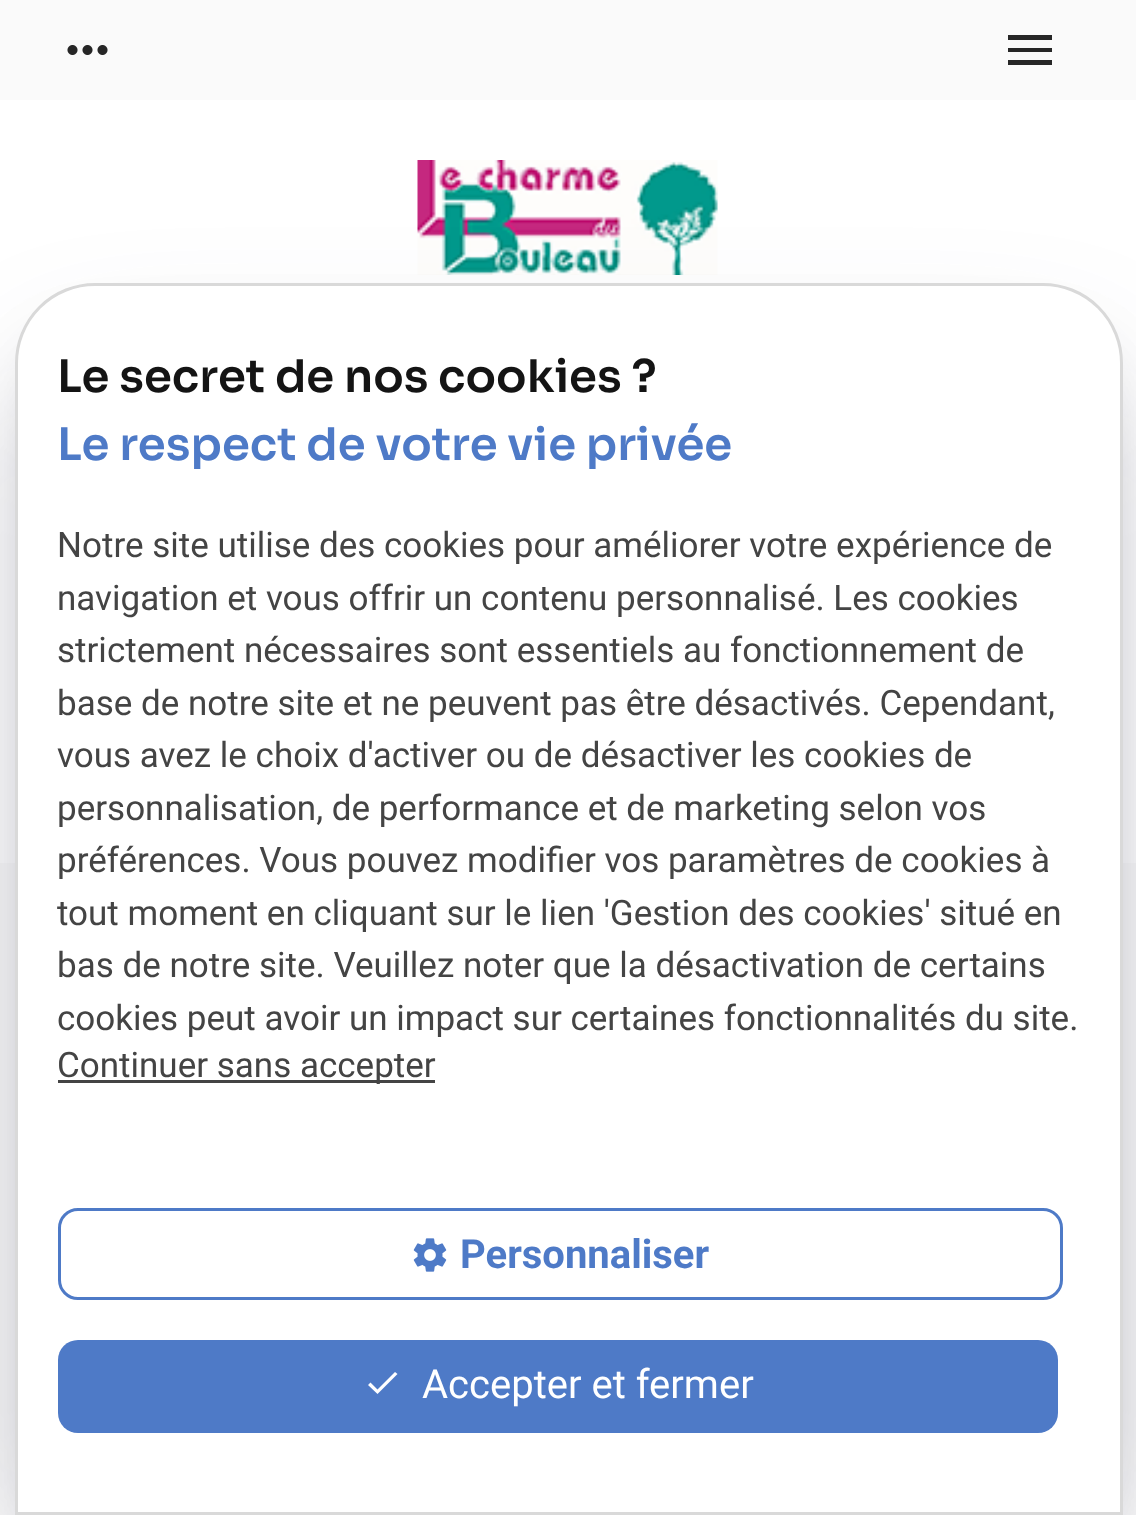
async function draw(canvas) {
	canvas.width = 1136;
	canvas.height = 1515;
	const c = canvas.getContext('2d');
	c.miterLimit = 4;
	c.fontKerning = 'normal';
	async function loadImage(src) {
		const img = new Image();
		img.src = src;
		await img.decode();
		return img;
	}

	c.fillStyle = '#fafafa';
	c.fillRect(0, 0, 1136, 1515);
	c.fillStyle = '#fff';
	c.fillRect(0, 100, 1136, 763);
	c.drawImage(await loadImage('img1.png'), 67, 45, 41, 10);
	c.fillStyle = '#262626';
	c.beginPath();
	c.moveTo(1008, 35);
	c.lineTo(1052, 35);
	c.lineTo(1052, 40);
	c.lineTo(1008, 40);
	c.closePath();
	c.moveTo(1008, 52);
	c.lineTo(1008, 48);
	c.lineTo(1052, 48);
	c.lineTo(1052, 52);
	c.closePath();
	c.moveTo(1008, 65);
	c.lineTo(1008, 60);
	c.lineTo(1052, 60);
	c.lineTo(1052, 65);
	c.closePath();
	c.fill();
	c.drawImage(await loadImage('img2.png'), 417, 160, 301, 115);
	c.fillStyle = '#0000004d';
	c.filter = 'blur(45px)';
	c.beginPath();
	c.roundRect(60, 373, 1018, 1142, 35);
	c.fill();
	c.filter = 'none';
	c.fillStyle = '#32325d40';
	c.filter = 'blur(75px)';
	c.beginPath();
	c.roundRect(45, 388, 1048, 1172, 50);
	c.fill();
	c.filter = 'none';
	c.fillStyle = '#fff';
	c.beginPath();
	c.roundRect(16.5, 284.5, 1105, 1229, [78.5, 78.5, 0, 0]);
	c.fill();
	c.strokeStyle = '#d9d9d9';
	c.lineWidth = 3;
	c.stroke();
	c.font = '600 45px Sora';
	c.fillStyle = '#141414';
	c.fillText('Le secret de nos cookies ?', 57, 392);
	c.fillStyle = '#4e7ac7';
	c.fillText('Le respect de votre vie privée', 57, 460);
	c.font = '35px Roboto';
	c.fillStyle = '#444';
	for (const [text, x, y] of [
		['Notre site utilise des cookies pour améliorer votre expérience de', 57, 557],
		['navigation et vous offrir un contenu personnalisé. Les cookies', 57, 610],
		['strictement nécessaires sont essentiels au fonctionnement de', 57, 662],
		['base de notre site et ne peuvent pas être désactivés. Cependant,', 57, 715],
		['vous avez le choix d\'activer ou de désactiver les cookies de', 57, 767],
		['personnalisation, de performance et de marketing selon vos', 57, 820],
		['préférences. Vous pouvez modifier vos paramètres de cookies à', 57, 872],
		['tout moment en cliquant sur le lien \'Gestion des cookies\' situé en', 57, 925],
		['bas de notre site. Veuillez noter que la désactivation de certains', 57, 977],
		['cookies peut avoir un impact sur certaines fonctionnalités du site.', 57, 1030],
	]) {
		c.fillText(text, x, y);
	}
	c.fillRect(58, 1080, 377, 3);
	c.fillText('Continuer sans accepter', 57, 1077);
	c.beginPath();
	c.roundRect(59.5, 1209.5, 1002, 89, 18.5);
	c.strokeStyle = '#4e7ac7';
	c.stroke();
	c.drawImage(await loadImage('img3.png'), 413, 1238, 34, 34);
	c.font = 'bold 40px Roboto';
	c.fillStyle = '#4e7ac7';
	c.fillText('Personnaliser', 460, 1268);
	c.beginPath();
	c.roundRect(58, 1340, 1000, 93, 20);
	c.fill();
	c.fillStyle = '#fff';
	c.beginPath();
	c.moveTo(377.5, 1389.5);
	c.lineTo(395, 1372);
	c.lineTo(397.5, 1374);
	c.lineTo(377.5, 1394);
	c.lineTo(368, 1385);
	c.lineTo(370.5, 1382.5);
	c.closePath();
	c.fill();
	c.font = '40px Roboto';
	c.fillText('Accepter et fermer', 422, 1398);
}

draw(document.querySelector('canvas'));
